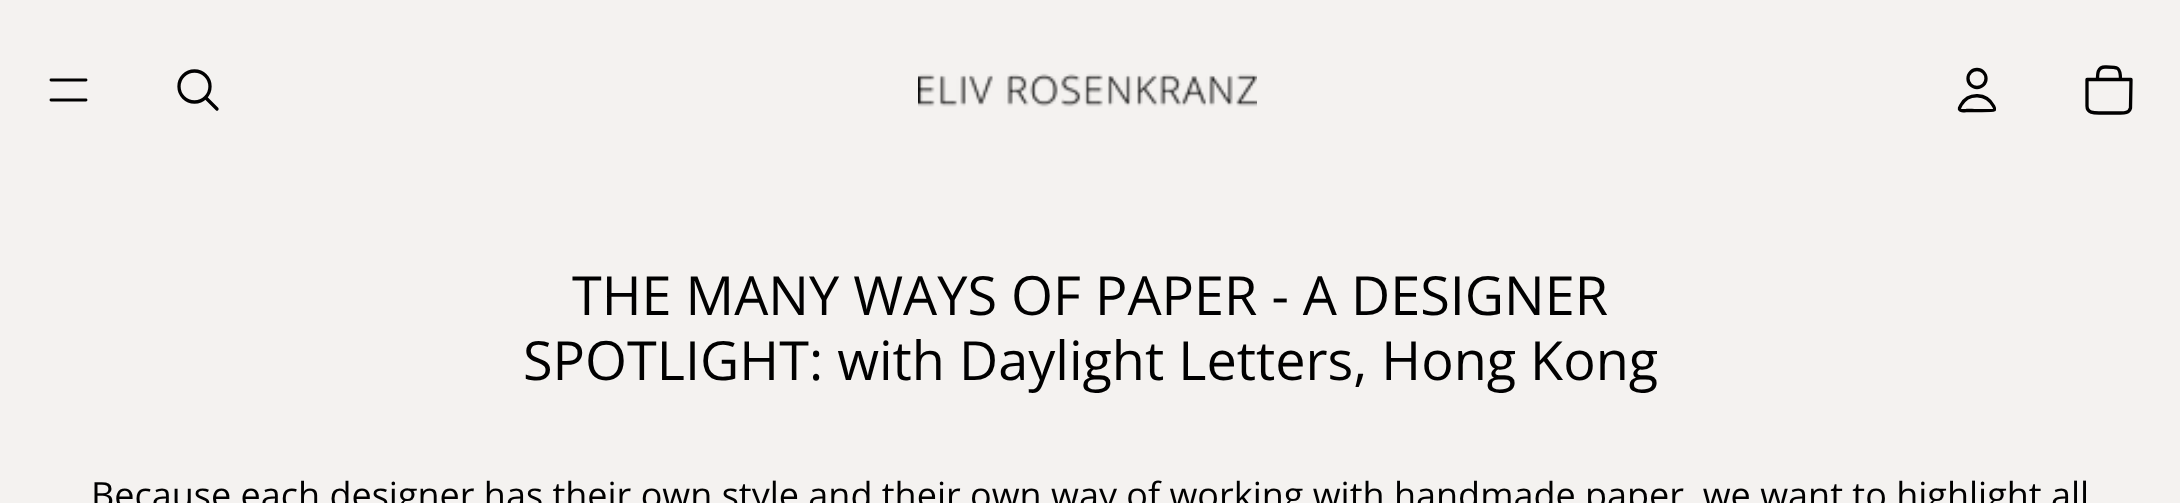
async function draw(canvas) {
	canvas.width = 2180;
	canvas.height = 503;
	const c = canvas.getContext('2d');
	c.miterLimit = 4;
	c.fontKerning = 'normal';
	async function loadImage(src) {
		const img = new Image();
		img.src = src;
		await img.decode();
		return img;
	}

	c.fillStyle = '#f4f2f0';
	c.fillRect(0, 0, 2180, 503);
	c.beginPath();
	c.moveTo(51, 80);
	c.lineTo(86, 80);
	c.moveTo(51, 100);
	c.lineTo(86, 100);
	c.strokeStyle = '#000';
	c.lineWidth = 2.9;
	c.lineCap = 'round';
	c.stroke();
	c.beginPath();
	c.arc(194.5, 86.5, 15.5, 0, 2 * Math.PI);
	c.lineWidth = 3.3;
	c.stroke();
	c.beginPath();
	c.moveTo(206, 98);
	c.lineTo(217, 109);
	c.lineJoin = 'round';
	c.stroke();
	c.drawImage(await loadImage('img1.png'), 918, 73, 339, 34);
	c.beginPath();
	c.arc(1977, 78.5, 9, 0, 2 * Math.PI);
	c.stroke();
	c.beginPath();
	c.moveTo(1961, 105);
	c.lineTo(1959.5, 108);
	c.bezierCurveTo(1958.5, 112, 1966, 110.5, 1966.5, 110.5);
	c.lineTo(1972, 110.5);
	c.bezierCurveTo(1974.5, 110.5, 1992.5, 111, 1994, 110);
	c.lineTo(1994.5, 109.5);
	c.bezierCurveTo(1995, 108.5, 1994, 107, 1993.5, 106);
	c.bezierCurveTo(1986.5, 93, 1968.5, 92, 1961, 105);
	c.stroke();
	c.beginPath();
	c.moveTo(2087, 79.5);
	c.lineTo(2131, 79.5);
	c.lineTo(2130.5, 108);
	c.bezierCurveTo(2129, 113.5, 2123.5, 113, 2119, 113);
	c.lineTo(2099, 113);
	c.bezierCurveTo(2094, 113, 2087, 113, 2087, 106);
	c.closePath();
	c.moveTo(2105, 67);
	c.bezierCurveTo(2117.5, 67, 2120.5, 66.5, 2120.5, 79.5);
	c.lineTo(2097.5, 79.5);
	c.bezierCurveTo(2097.5, 74, 2097.5, 67, 2105, 67);
	c.stroke();
	c.font = '54px Open Sans';
	c.fillStyle = '#000';
	c.fillText('THE MANY WAYS OF PAPER - A DESIGNER', 572, 315);
	c.fillText('SPOTLIGHT: with Daylight Letters, Hong Kong', 523, 380);
	c.font = '36px Open Sans';
	c.fillText('Because each designer has their own style and their own way of working with handmade paper, we want to highlight all', 91, 508);
}

draw(document.querySelector('canvas'));
